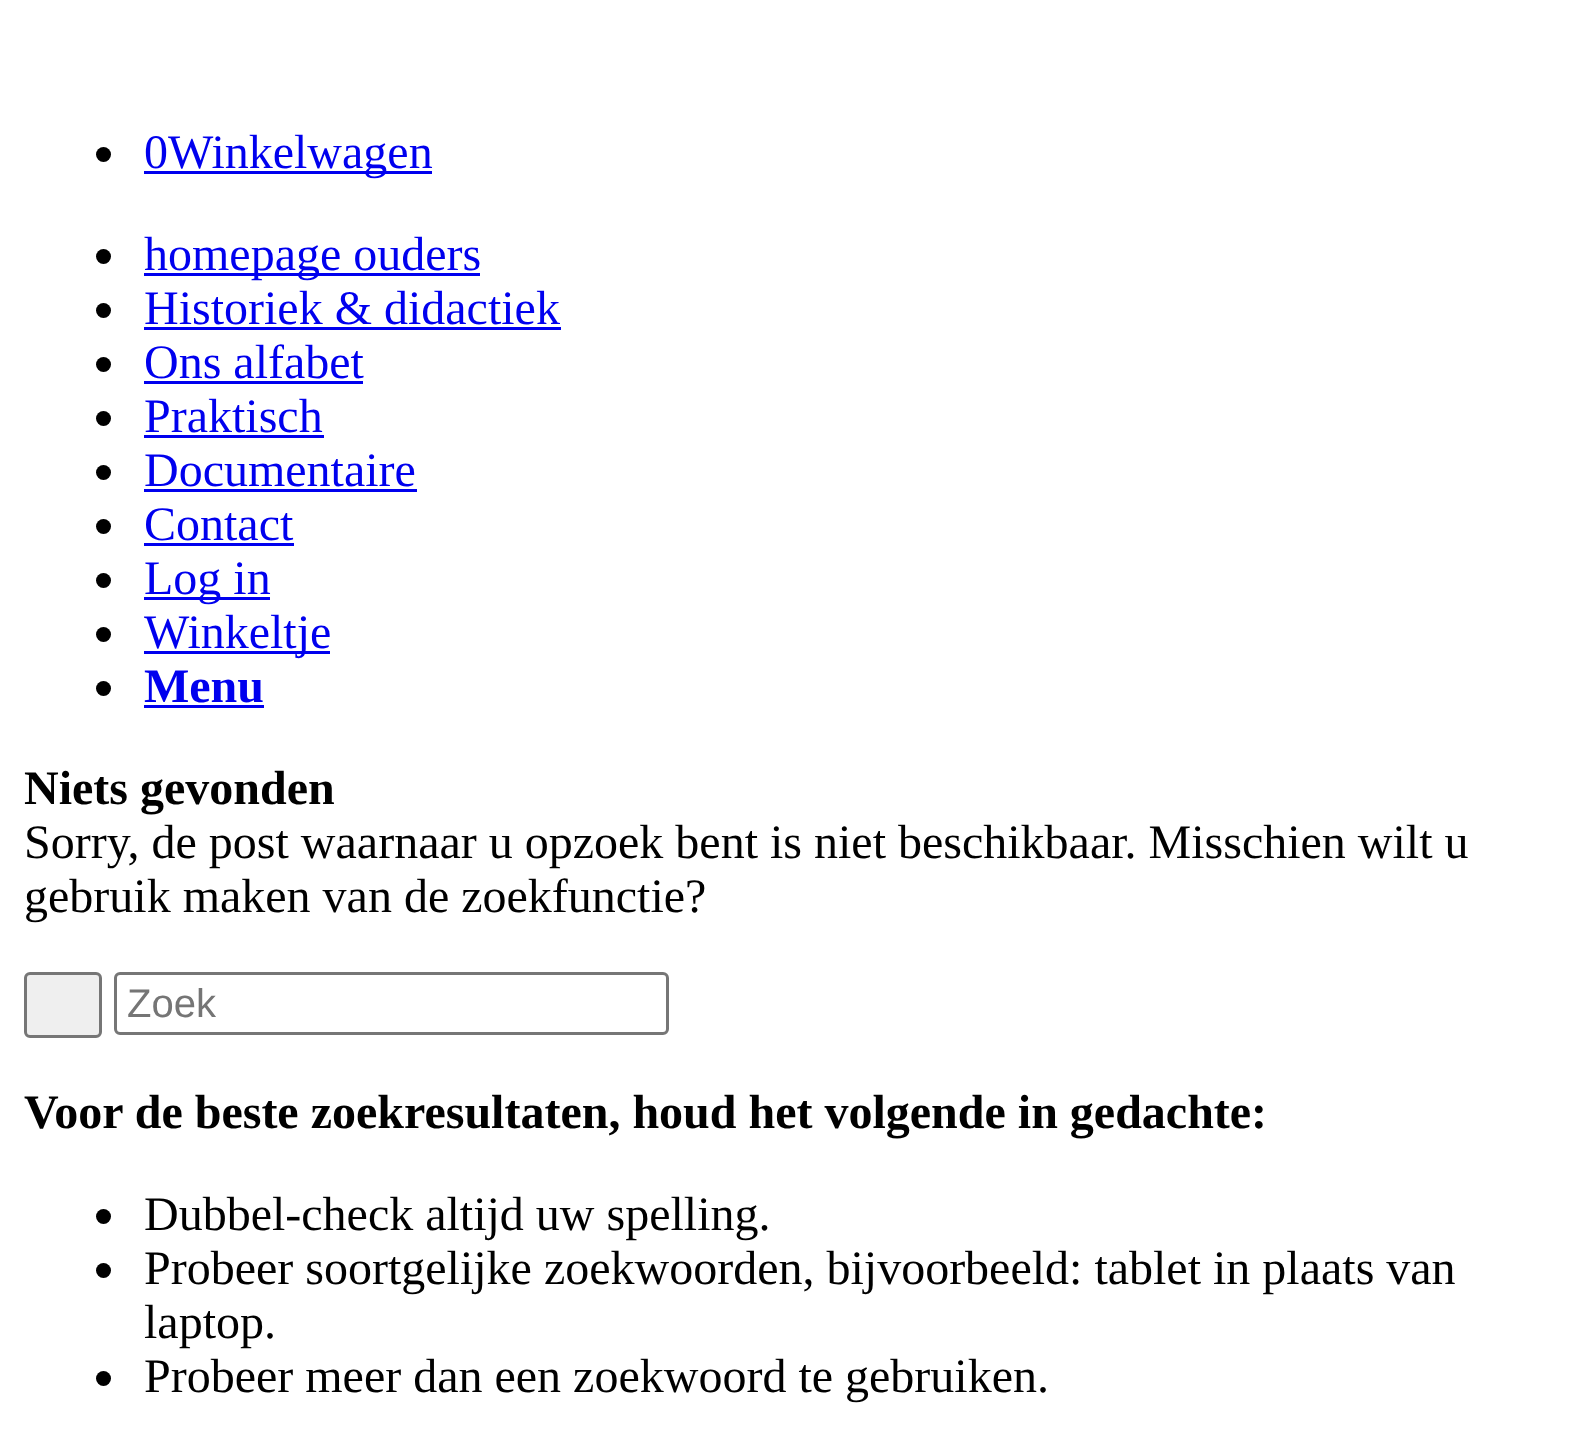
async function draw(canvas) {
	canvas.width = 1584;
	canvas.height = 1446;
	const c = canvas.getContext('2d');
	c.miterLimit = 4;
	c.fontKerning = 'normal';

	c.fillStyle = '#fff';
	c.fillRect(0, 0, 1584, 1446);
	c.fillStyle = '#000';
	c.beginPath();
	c.arc(103.5, 154.5, 7.5, 0, 2 * Math.PI);
	c.fill();
	c.fillStyle = '#00e';
	c.fillRect(144, 171, 288, 3);
	c.font = '48px Liberation Serif';
	c.fillText('0Winkelwagen', 144, 168);
	c.fillStyle = '#000';
	c.beginPath();
	c.arc(103.5, 256.5, 7.5, 0, 2 * Math.PI);
	c.fill();
	c.fillStyle = '#00e';
	c.fillRect(144, 273, 336, 3);
	c.fillText('homepage ouders', 144, 270);
	c.fillStyle = '#000';
	c.beginPath();
	c.arc(103.5, 310.5, 7.5, 0, 2 * Math.PI);
	c.fill();
	c.fillStyle = '#00e';
	c.fillText('Historiek & didactiek', 144, 324);
	c.fillRect(144, 327, 417, 3);
	c.fillStyle = '#000';
	c.beginPath();
	c.arc(103.5, 364.5, 7.5, 0, 2 * Math.PI);
	c.fill();
	c.fillStyle = '#00e';
	c.fillText('Ons alfabet', 144, 378);
	c.fillRect(144, 381, 219, 3);
	c.fillStyle = '#000';
	c.beginPath();
	c.arc(103.5, 418.5, 7.5, 0, 2 * Math.PI);
	c.fill();
	c.fillStyle = '#00e';
	c.fillText('Praktisch', 144, 432);
	c.fillRect(144, 435, 180, 3);
	c.fillStyle = '#000';
	c.beginPath();
	c.arc(103.5, 472.5, 7.5, 0, 2 * Math.PI);
	c.fill();
	c.fillStyle = '#00e';
	c.fillText('Documentaire', 144, 486);
	c.fillRect(144, 489, 273, 3);
	c.fillStyle = '#000';
	c.beginPath();
	c.arc(103.5, 526.5, 7.5, 0, 2 * Math.PI);
	c.fill();
	c.fillStyle = '#00e';
	c.fillText('Contact', 144, 540);
	c.fillRect(144, 543, 150, 3);
	c.fillStyle = '#000';
	c.beginPath();
	c.arc(103.5, 580.5, 7.5, 0, 2 * Math.PI);
	c.fill();
	c.fillStyle = '#00e';
	c.fillRect(144, 597, 126, 3);
	c.fillText('Log in', 144, 594);
	c.fillStyle = '#000';
	c.beginPath();
	c.arc(103.5, 634.5, 7.5, 0, 2 * Math.PI);
	c.fill();
	c.fillStyle = '#00e';
	c.fillRect(144, 651, 186, 3);
	c.fillText('Winkeltje', 144, 648);
	c.fillStyle = '#000';
	c.beginPath();
	c.arc(103.5, 688.5, 7.5, 0, 2 * Math.PI);
	c.fill();
	c.font = 'bold 48px Liberation Serif';
	c.fillStyle = '#00e';
	c.fillText('Menu', 144, 702);
	c.fillRect(144, 705, 120, 3);
	c.fillStyle = '#000';
	c.fillText('Niets gevonden', 24, 804);
	c.font = '48px Liberation Serif';
	c.fillText('Sorry, de post waarnaar u opzoek bent is niet beschikbaar. Misschien wilt u', 24, 858);
	c.fillText('gebruik maken van de zoekfunctie?', 24, 912);
	c.fillStyle = '#efefef';
	c.beginPath();
	c.roundRect(25.5, 973.5, 75, 63, 4.5);
	c.fill();
	c.strokeStyle = '#767676';
	c.lineWidth = 3;
	c.stroke();
	c.beginPath();
	c.roundRect(115.5, 973.5, 552, 60, 4.5);
	c.stroke();
	c.font = '40px Liberation Sans';
	c.fillStyle = '#757575';
	c.fillText('Zoek', 127, 1017);
	c.font = 'bold 48px Liberation Serif';
	c.fillStyle = '#000';
	c.fillText('Voor de beste zoekresultaten, houd het volgende in gedachte:', 24, 1128);
	c.beginPath();
	c.arc(103.5, 1216.5, 7.5, 0, 2 * Math.PI);
	c.fill();
	c.font = '48px Liberation Serif';
	c.fillText('Dubbel-check altijd uw spelling.', 144, 1230);
	c.beginPath();
	c.arc(103.5, 1270.5, 7.5, 0, 2 * Math.PI);
	c.fill();
	c.fillText('Probeer soortgelijke zoekwoorden, bijvoorbeeld: tablet in plaats van', 144, 1284);
	c.fillText('laptop.', 144, 1338);
	c.beginPath();
	c.arc(103.5, 1378.5, 7.5, 0, 2 * Math.PI);
	c.fill();
	c.fillText('Probeer meer dan een zoekwoord te gebruiken.', 144, 1392);
}

draw(document.querySelector('canvas'));
